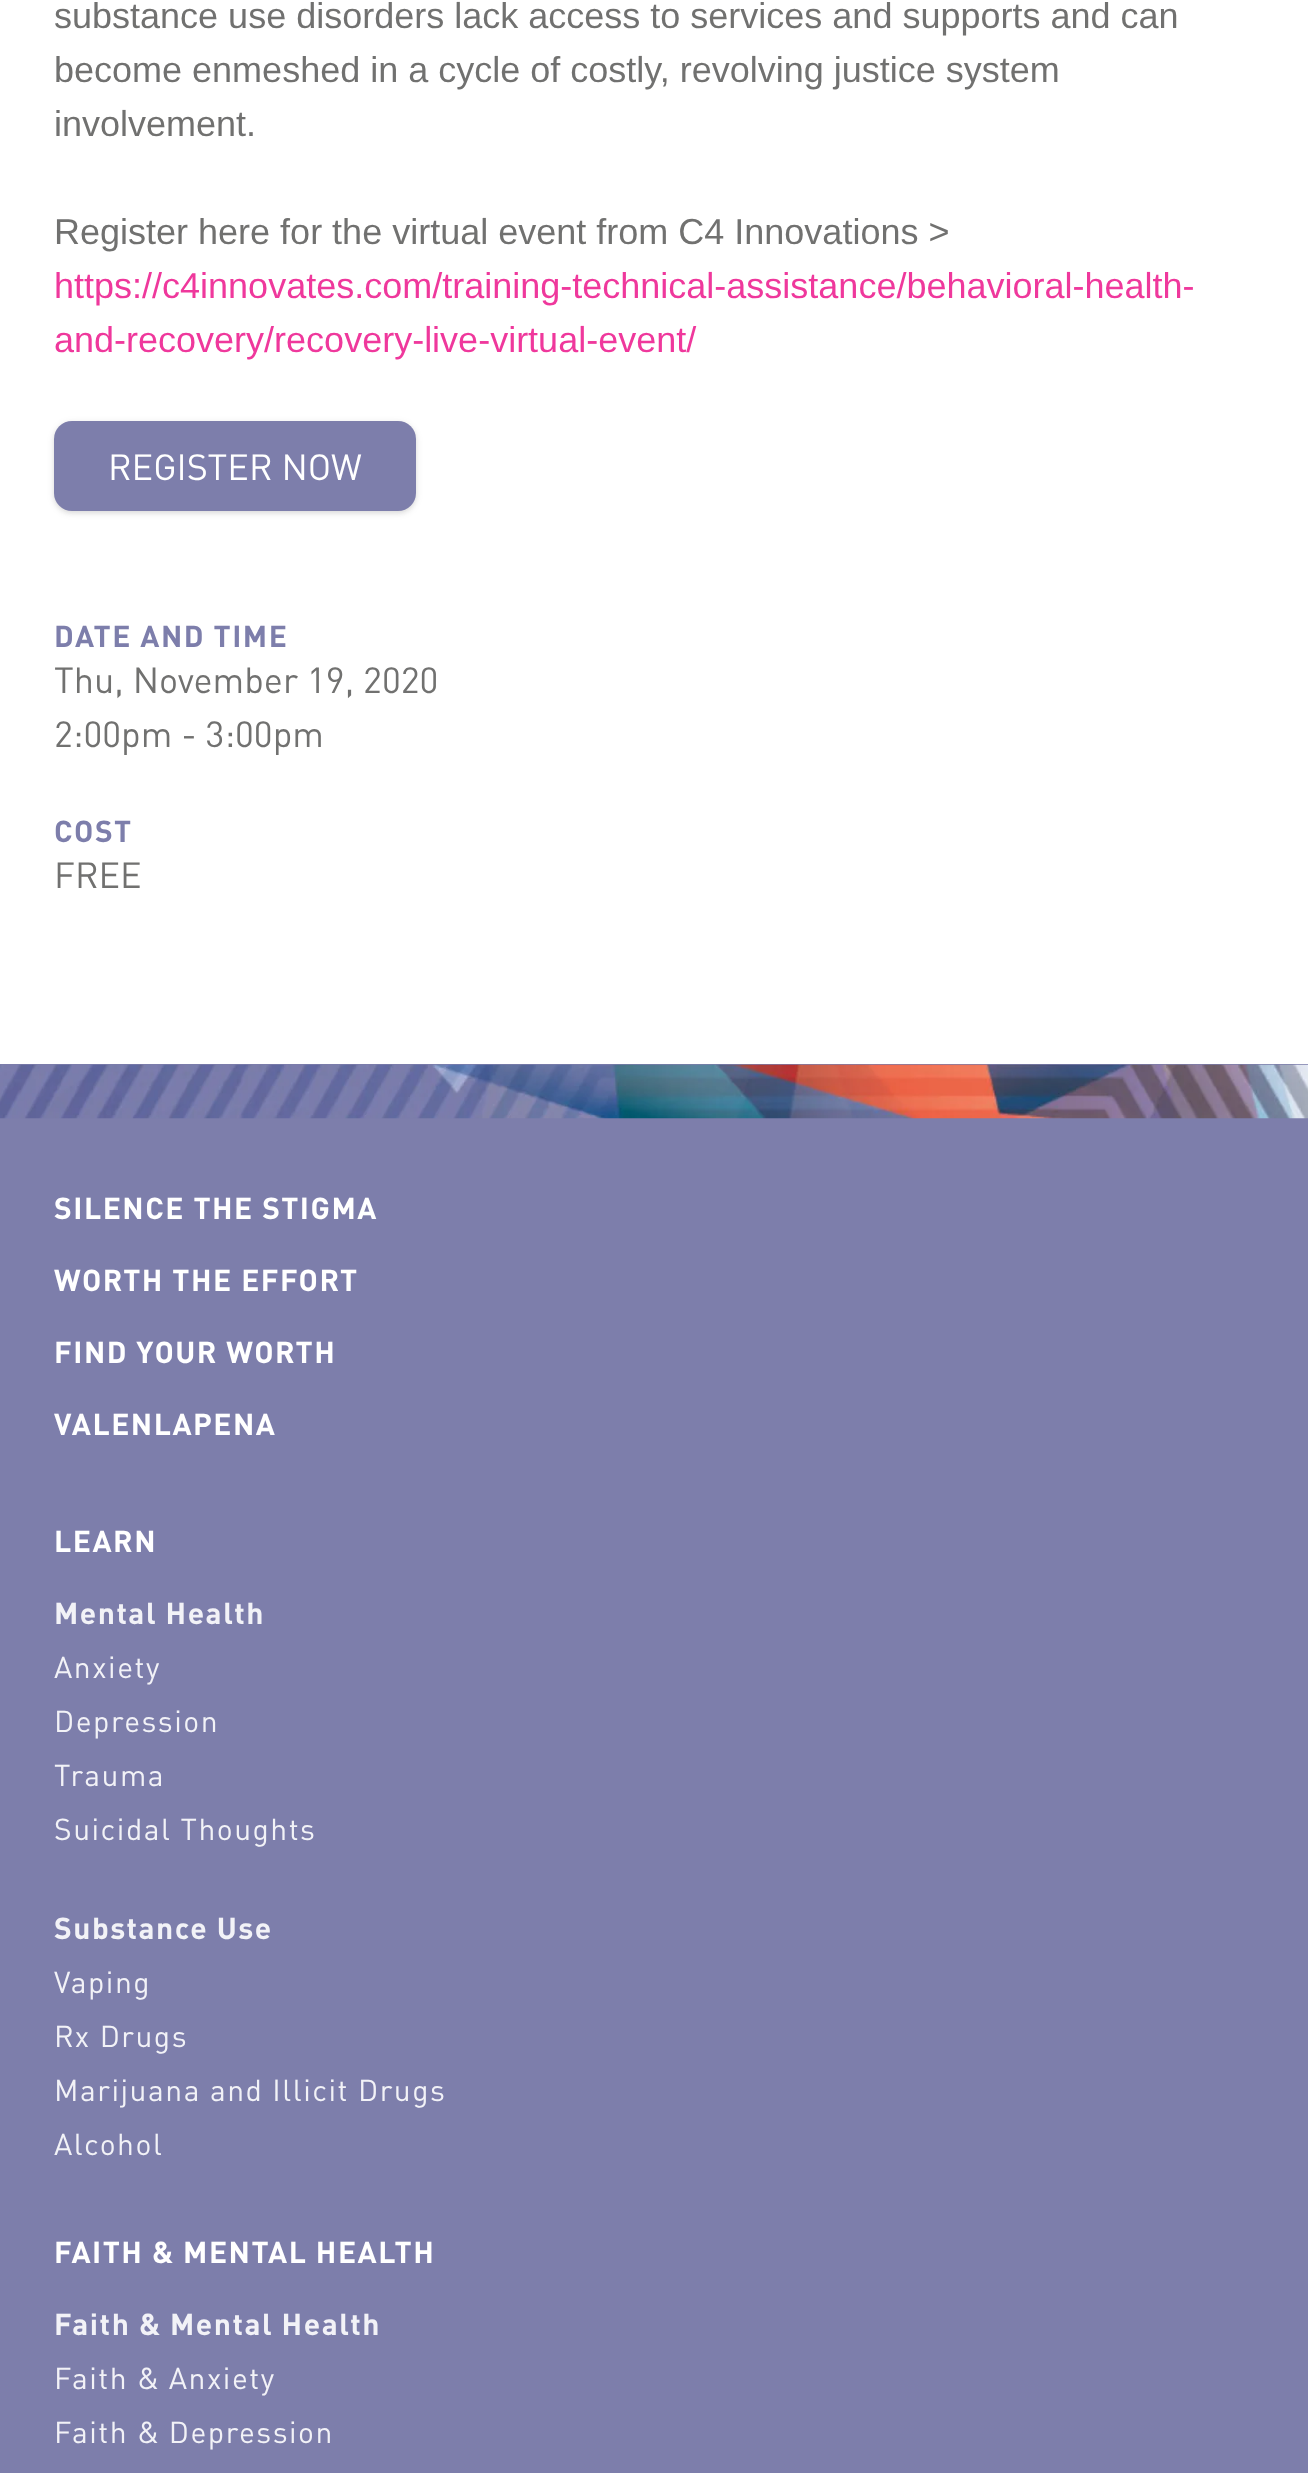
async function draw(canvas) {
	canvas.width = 1308;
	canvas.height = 2473;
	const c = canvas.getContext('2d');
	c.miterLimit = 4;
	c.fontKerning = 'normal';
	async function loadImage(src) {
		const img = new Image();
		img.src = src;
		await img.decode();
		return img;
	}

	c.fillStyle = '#fff';
	c.fillRect(0, 0, 1308, 2473);
	c.font = '36px Liberation Sans';
	c.fillStyle = '#717170';
	for (const [text, x, y] of [
		['substance use disorders lack access to services and supports and can', 54, 28],
		['become enmeshed in a cycle of costly, revolving justice system', 54, 82],
		['involvement.', 54, 136],
		['Register here for the virtual event from C4 Innovations >', 54, 244],
	]) {
		c.fillText(text, x, y);
	}
	c.fillStyle = '#ef389c';
	c.fillText('https://c4innovates.com/training-technical-assistance/behavioral-health-', 54, 298);
	c.fillText('and-recovery/recovery-live-virtual-event/', 54, 352);
	c.fillStyle = '#0000000f';
	c.filter = 'blur(2px)';
	c.beginPath();
	c.roundRect(54, 423, 362, 90, 18);
	c.fill();
	c.filter = 'none';
	c.fillStyle = '#0000001a';
	c.filter = 'blur(3.5px)';
	c.beginPath();
	c.roundRect(54, 423, 362, 90, 18);
	c.fill();
	c.filter = 'none';
	c.fillStyle = '#7d7eab';
	c.beginPath();
	c.roundRect(54, 421, 362, 90, 18);
	c.fill();
	c.font = '36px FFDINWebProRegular';
	c.fillStyle = '#fff';
	c.fillText('REGISTER NOW', 108, 480);
	c.letterSpacing = '1.5px';
	c.font = '30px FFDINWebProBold';
	c.fillStyle = '#7d7eab';
	c.fillText('DATE AND TIME', 54, 647);
	c.letterSpacing = '0px';
	c.font = '36px FFDINWebProRegular';
	c.fillStyle = '#717170';
	c.fillText('Thu, November 19, 2020', 54, 693);
	c.fillText('2:00pm - 3:00pm', 54, 747);
	c.letterSpacing = '1.5px';
	c.font = '30px FFDINWebProBold';
	c.fillStyle = '#7d7eab';
	c.fillText('COST', 54, 842);
	c.letterSpacing = '0px';
	c.font = '36px FFDINWebProRegular';
	c.fillStyle = '#717170';
	c.fillText('FREE', 54, 888);
	c.fillStyle = '#7d7eab';
	c.fillRect(0, 1064, 1308, 1409);
	c.drawImage(await loadImage('img1.png'), 0, 1064, 1308, 55);
	c.letterSpacing = '1.5px';
	c.font = '30px FFDINWebProBold';
	c.fillStyle = '#fff';
	for (const [text, x, y] of [
		['SILENCE THE STIGMA', 54, 1219],
		['WORTH THE EFFORT', 54, 1291],
		['FIND YOUR WORTH', 54, 1363],
		['VALENLAPENA', 54, 1435],
		['LEARN', 54, 1552],
	]) {
		c.fillText(text, x, y);
	}
	c.fillStyle = '#f2f2f7';
	c.fillText('Mental Health', 54, 1624);
	c.font = '30px FFDINWebProRegular';
	for (const [text, x, y] of [
		['Anxiety', 54, 1678],
		['Depression', 54, 1732],
		['Trauma', 54, 1786],
		['Suicidal Thoughts', 54, 1840],
	]) {
		c.fillText(text, x, y);
	}
	c.font = '30px FFDINWebProBold';
	c.fillText('Substance Use', 54, 1939);
	c.font = '30px FFDINWebProRegular';
	for (const [text, x, y] of [
		['Vaping', 54, 1993],
		['Rx Drugs', 54, 2047],
		['Marijuana and Illicit Drugs', 54, 2101],
		['Alcohol', 54, 2155],
	]) {
		c.fillText(text, x, y);
	}
	c.font = '30px FFDINWebProBold';
	c.fillStyle = '#fff';
	c.fillText('FAITH & MENTAL HEALTH', 54, 2263);
	c.fillStyle = '#f2f2f7';
	c.fillText('Faith & Mental Health', 54, 2335);
	c.font = '30px FFDINWebProRegular';
	c.fillText('Faith & Anxiety', 54, 2389);
	c.fillText('Faith & Depression', 54, 2443);
}

draw(document.querySelector('canvas'));
